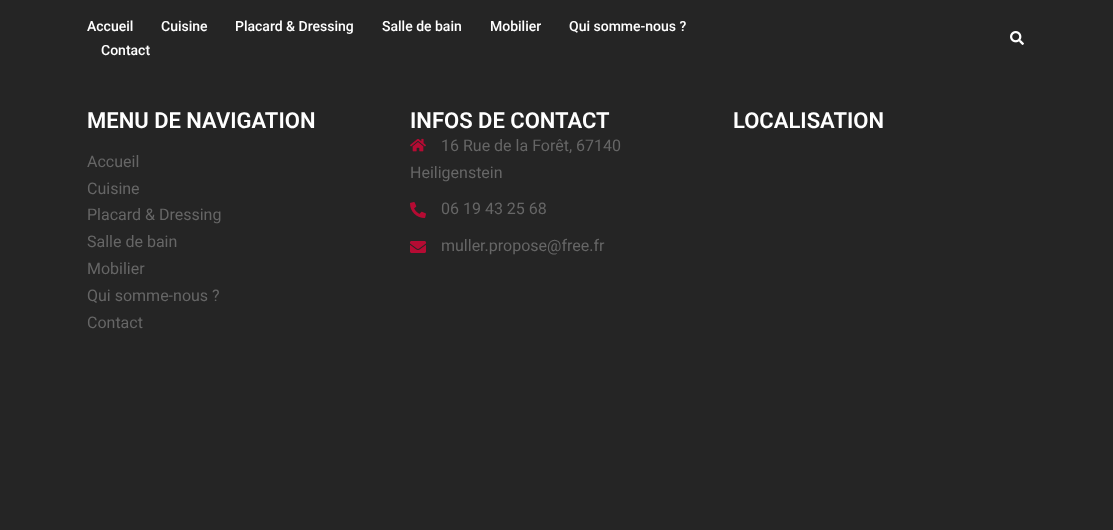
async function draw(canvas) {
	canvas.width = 1113;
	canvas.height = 530;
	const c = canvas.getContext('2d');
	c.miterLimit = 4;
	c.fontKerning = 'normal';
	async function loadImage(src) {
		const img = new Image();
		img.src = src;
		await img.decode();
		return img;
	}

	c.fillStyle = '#252525';
	c.fillRect(0, 0, 1113, 530);
	c.font = '500 14px Roboto';
	c.fillStyle = '#fff';
	for (const [text, x, y] of [
		['Accueil', 87, 31],
		['Cuisine', 161, 31],
		['Placard & Dressing', 235, 31],
		['Salle de bain', 382, 31],
		['Mobilier', 490, 31],
		['Qui somme-nous ?', 569, 31],
		['Contact', 101, 55],
	]) {
		c.fillText(text, x, y);
	}
	c.drawImage(await loadImage('img1.png'), 1010, 31, 14, 14);
	c.font = '600 22px Roboto';
	c.fillText('MENU DE NAVIGATION', 87, 128);
	c.font = '16px Roboto';
	c.fillStyle = '#666';
	for (const [text, x, y] of [
		['Accueil', 87, 167],
		['Cuisine', 87, 194],
		['Placard & Dressing', 87, 220],
		['Salle de bain', 87, 247],
		['Mobilier', 87, 274],
		['Qui somme-nous ?', 87, 301],
		['Contact', 87, 328],
	]) {
		c.fillText(text, x, y);
	}
	c.font = '600 22px Roboto';
	c.fillStyle = '#fff';
	c.fillText('INFOS DE CONTACT', 410, 128);
	c.drawImage(await loadImage('img2.png'), 410, 138, 16, 14);
	c.font = '16px Roboto';
	c.fillStyle = '#666';
	c.fillText('16 Rue de la Forêt, 67140', 441, 151);
	c.fillText('Heiligenstein', 410, 178);
	c.drawImage(await loadImage('img3.png'), 410, 202, 16, 16);
	c.fillText('06 19 43 25 68', 441, 214);
	c.drawImage(await loadImage('img4.png'), 410, 241, 16, 12);
	c.fillText('muller.propose@free.fr', 441, 251);
	c.font = '600 22px Roboto';
	c.fillStyle = '#fff';
	c.fillText('LOCALISATION', 733, 128);
}

draw(document.querySelector('canvas'));
